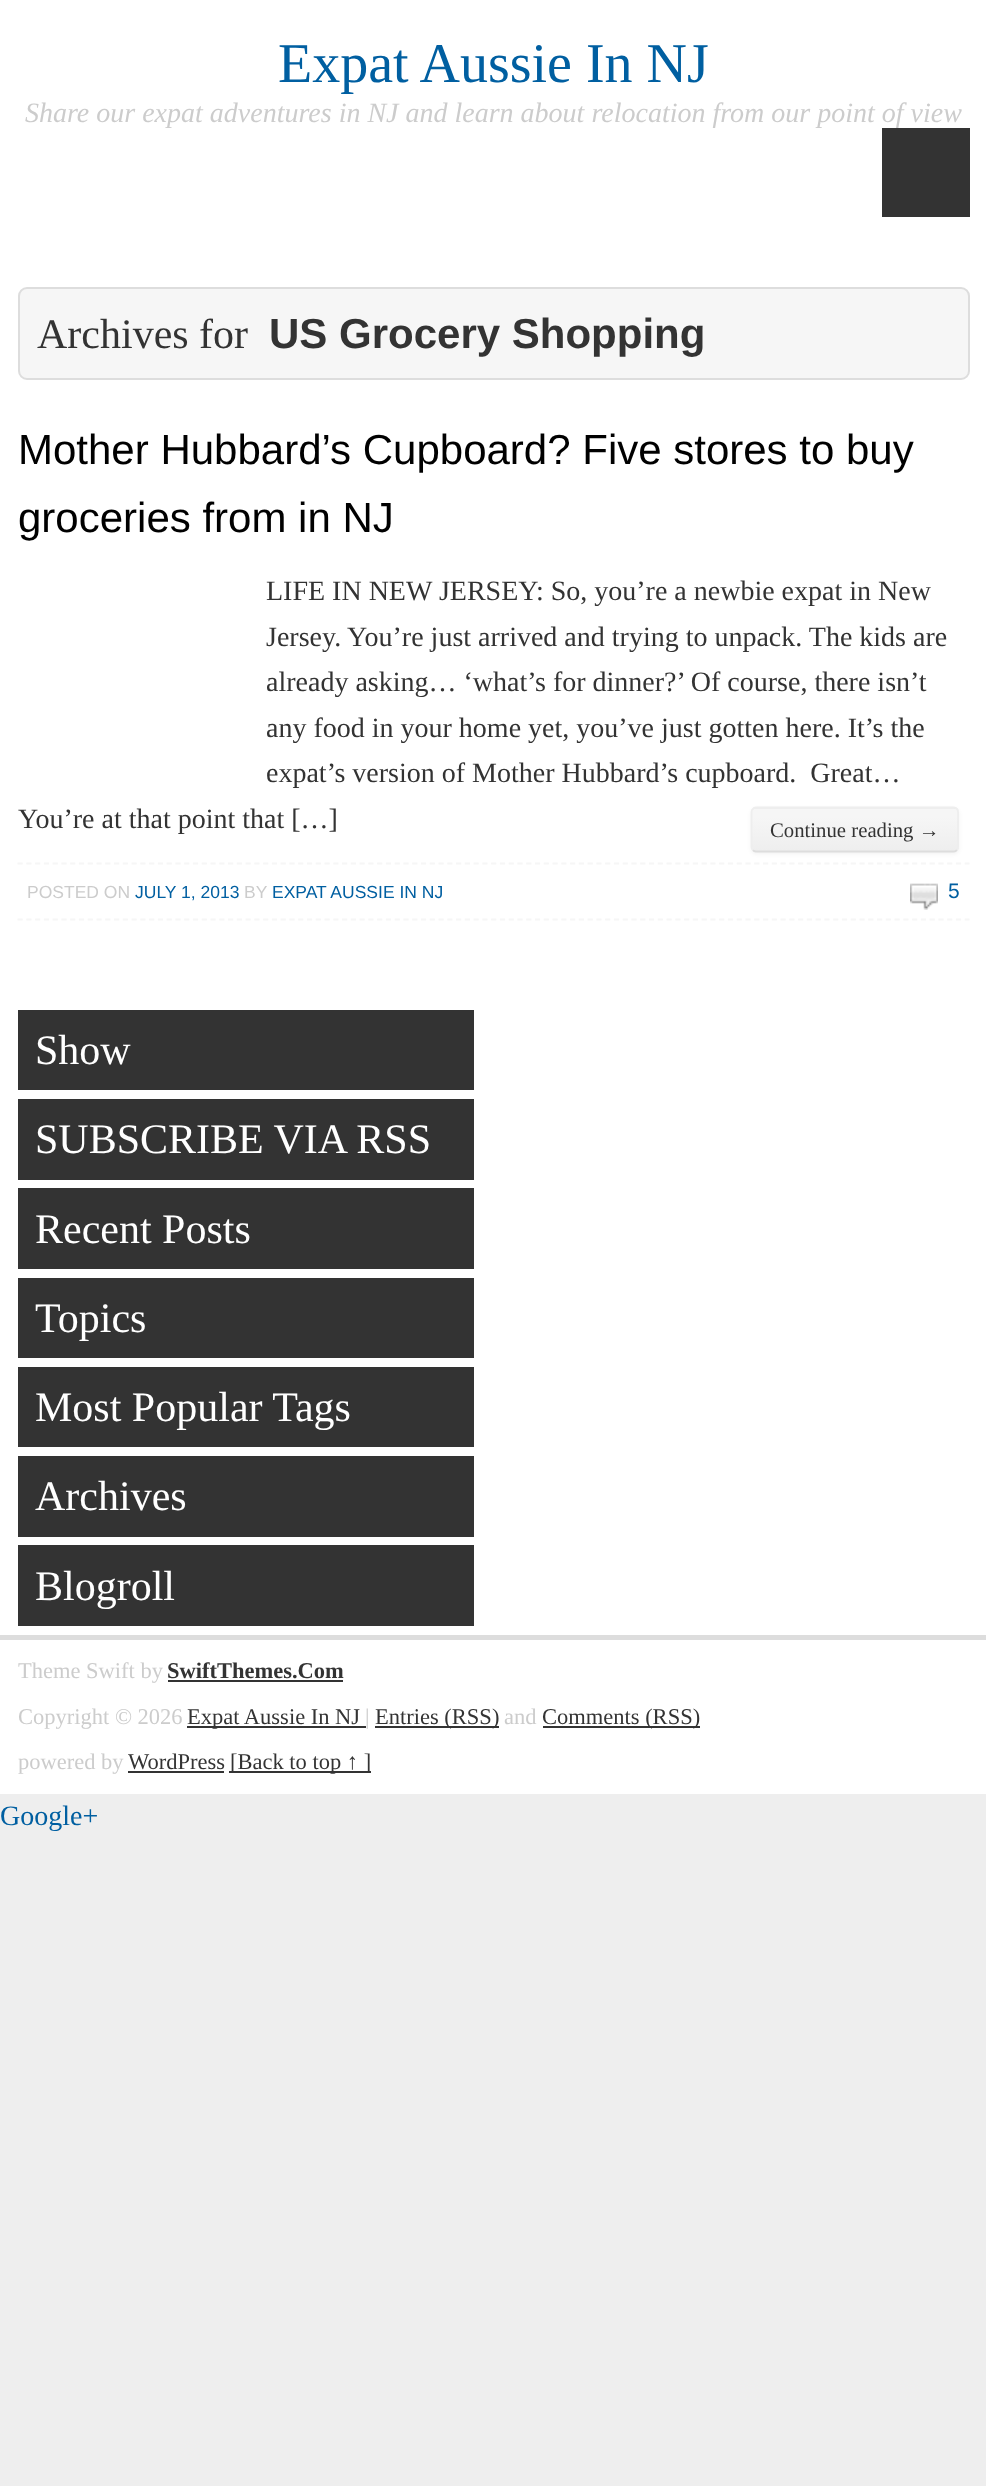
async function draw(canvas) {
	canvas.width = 986;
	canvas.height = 2486;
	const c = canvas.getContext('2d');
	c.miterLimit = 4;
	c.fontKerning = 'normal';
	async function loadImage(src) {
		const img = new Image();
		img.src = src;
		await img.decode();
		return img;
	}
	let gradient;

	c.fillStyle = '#eee';
	c.fillRect(0, 0, 986, 2486);
	c.fillStyle = '#fff';
	c.fillRect(0, 0, 986, 1794);
	c.font = '56px Liberation Serif';
	c.fillStyle = '#005fa1';
	c.fillText('Expat Aussie In NJ', 278, 82);
	c.font = 'italic 28px Liberation Serif';
	c.fillStyle = '#ccc';
	c.fillText('Share our expat adventures in NJ and learn about relocation from our point of view', 25, 122);
	c.fillStyle = '#333';
	c.fillRect(882, 128, 88, 89);
	c.fillStyle = '#f6f6f6';
	c.beginPath();
	c.roundRect(19, 288, 950, 91, 8);
	c.fill();
	c.strokeStyle = '#ddd';
	c.lineWidth = 2;
	c.stroke();
	c.font = '42px Liberation Serif';
	c.fillStyle = '#333';
	c.fillText('Archives for', 37, 348);
	c.font = 'bold 42px Liberation Sans';
	c.fillText('US Grocery Shopping', 269, 348);
	c.font = '42px Liberation Sans';
	c.fillStyle = '#000';
	c.fillText('Mother Hubbard’s Cupboard? Five stores to buy', 18, 464);
	c.fillText('groceries from in NJ', 18, 532);
	c.font = '28px Liberation Serif';
	c.fillStyle = '#333';
	for (const [text, x, y] of [
		['LIFE IN NEW JERSEY: So, you’re a newbie expat in New', 266, 600],
		['Jersey. You’re just arrived and trying to unpack. The kids are', 266, 646],
		['already asking… ‘what’s for dinner?’ Of course, there isn’t', 266, 691],
		['any food in your home yet, you’ve just gotten here. It’s the', 266, 737],
		['expat’s version of Mother Hubbard’s cupboard.  Great…', 266, 782],
		['You’re at that point that […]', 18, 828],
	]) {
		c.fillText(text, x, y);
	}
	c.fillStyle = '#0000000d';
	c.filter = 'blur(2px)';
	c.beginPath();
	c.roundRect(751, 809, 208, 45, 5);
	c.fill();
	c.filter = 'none';
	c.save();
	c.beginPath();
	c.roundRect(751, 807, 208, 45, 5);
	c.clip();
	gradient = c.createLinearGradient(753, 767, 753, 809);
	gradient.addColorStop(0.2, '#f6f6f6');
	gradient.addColorStop(1, '#eee');
	c.fillStyle = gradient;
	c.fillRect(751, 807, 208, 2);
	gradient = c.createLinearGradient(753, 809, 753, 851);
	gradient.addColorStop(0.2, '#f6f6f6');
	gradient.addColorStop(1, '#eee');
	c.fillStyle = gradient;
	c.fillRect(751, 809, 208, 42);
	c.restore();
	c.beginPath();
	c.moveTo(957, 850);
	c.bezierCurveTo(956, 851, 955, 851.5, 954, 851.5);
	c.lineTo(756, 851.5);
	c.bezierCurveTo(755, 851.5, 753.5, 851, 753, 850);
	c.lineWidth = 1.8;
	c.stroke();
	c.beginPath();
	c.moveTo(753, 850);
	c.bezierCurveTo(752, 849.5, 751.5, 848, 751.5, 847);
	c.lineTo(751.5, 812);
	c.bezierCurveTo(751.5, 811, 752, 809.5, 753, 809);
	c.bezierCurveTo(753.5, 808, 755, 807.5, 756, 807.5);
	c.lineTo(954, 807.5);
	c.bezierCurveTo(955, 807.5, 956, 808, 957, 809);
	c.bezierCurveTo(957.5, 809.5, 958, 811, 958, 812);
	c.lineTo(958, 847);
	c.bezierCurveTo(958, 848, 957.5, 849.5, 957, 850);
	c.strokeStyle = '#eee';
	c.stroke();
	c.font = '20.75px Liberation Serif';
	c.fillStyle = '#333';
	c.fillText('Continue reading →', 770, 837);
	c.beginPath();
	c.moveTo(17.5, 863.5);
	c.lineTo(969.5, 863.5);
	c.strokeStyle = '#f6f6f6';
	c.setLineDash([5.25, 3.52]);
	c.stroke();
	c.beginPath();
	c.moveTo(17.5, 919.5);
	c.lineTo(969.5, 919.5);
	c.stroke();
	c.font = '17.5px Liberation Sans';
	c.fillStyle = '#ccc';
	c.fillText('POSTED ON', 27, 898);
	c.fillStyle = '#005fa1';
	c.fillText('JULY 1, 2013', 135, 898);
	c.fillStyle = '#ccc';
	c.fillText('BY', 244, 898);
	c.fillStyle = '#005fa1';
	c.fillText('EXPAT AUSSIE IN NJ', 272, 898);
	c.drawImage(await loadImage('img1.png'), 910, 883, 28, 27);
	c.font = '21px Liberation Sans';
	c.fillText('5', 948, 898);
	c.fillStyle = '#333';
	c.fillRect(18, 1010, 456, 80);
	c.font = '42px Liberation Serif';
	c.fillStyle = '#fff';
	c.fillText('Show', 35, 1064);
	c.fillStyle = '#333';
	c.fillRect(18, 1099, 456, 81);
	c.fillStyle = '#fff';
	c.fillText('SUBSCRIBE VIA RSS', 35, 1153);
	c.fillStyle = '#333';
	c.fillRect(18, 1188, 456, 81);
	c.fillStyle = '#fff';
	c.fillText('Recent Posts', 35, 1243);
	c.fillStyle = '#333';
	c.fillRect(18, 1278, 456, 80);
	c.fillStyle = '#fff';
	c.fillText('Topics', 35, 1332);
	c.fillStyle = '#333';
	c.fillRect(18, 1367, 456, 80);
	c.fillStyle = '#fff';
	c.fillText('Most Popular Tags', 35, 1421);
	c.fillStyle = '#333';
	c.fillRect(18, 1456, 456, 81);
	c.fillStyle = '#fff';
	c.fillText('Archives', 35, 1510);
	c.fillStyle = '#333';
	c.fillRect(18, 1545, 456, 81);
	c.fillStyle = '#fff';
	c.fillText('Blogroll', 35, 1600);
	c.fillStyle = '#ddd';
	c.fillRect(0, 1635, 986, 5);
	c.font = '22.5px Liberation Serif';
	c.fillStyle = '#ccc';
	c.fillText('Theme Swift by', 18, 1678);
	c.font = 'bold 22.5px Liberation Serif';
	c.fillStyle = '#333';
	c.fillText('SwiftThemes.Com', 167, 1678);
	c.fillRect(168, 1680, 175, 2);
	c.font = '22.5px Liberation Serif';
	c.fillStyle = '#ccc';
	c.fillText('Copyright © 2026', 18, 1724);
	c.fillStyle = '#333';
	c.fillRect(187, 1726, 179, 2);
	c.fillText('Expat Aussie In NJ', 187, 1724);
	c.fillStyle = '#ccc';
	c.fillText('|', 365, 1724);
	c.fillStyle = '#333';
	c.fillRect(375, 1726, 124, 2);
	c.fillText('Entries (RSS)', 375, 1724);
	c.fillStyle = '#ccc';
	c.fillText('and', 504, 1724);
	c.fillStyle = '#333';
	c.fillRect(543, 1726, 157, 2);
	c.fillText('Comments (RSS)', 542, 1724);
	c.fillStyle = '#ccc';
	c.fillText('powered by', 18, 1769);
	c.fillStyle = '#333';
	c.fillText('WordPress', 128, 1769);
	c.fillRect(128, 1771, 96, 2);
	c.fillRect(229, 1771, 142, 2);
	c.fillText('[Back to top ↑ ]', 230, 1769);
	c.font = '28px Liberation Serif';
	c.fillStyle = '#005fa1';
	c.fillText('Google+', 0, 1825);
}

draw(document.querySelector('canvas'));
